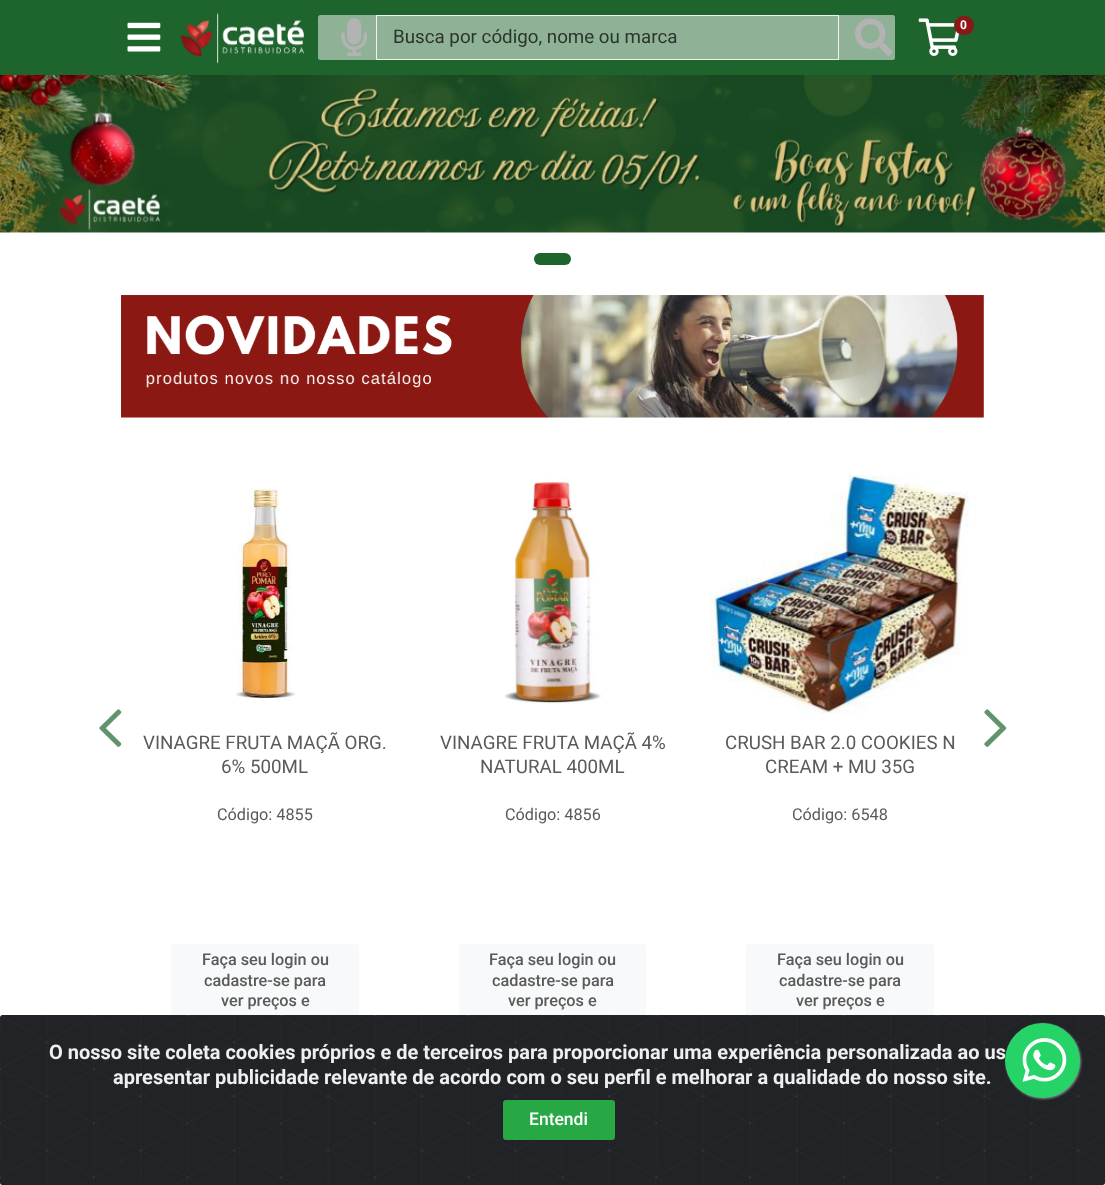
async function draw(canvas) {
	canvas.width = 1105;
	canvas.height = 1185;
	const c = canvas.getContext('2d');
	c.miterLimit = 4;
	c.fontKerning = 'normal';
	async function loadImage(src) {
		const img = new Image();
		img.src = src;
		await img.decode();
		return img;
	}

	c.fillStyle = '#fff';
	c.fillRect(0, 0, 1105, 1185);
	c.fillStyle = '#1e642d';
	c.fillRect(0, 0, 1105, 75);
	c.drawImage(await loadImage('img1.png'), 127, 22, 34, 30);
	c.drawImage(await loadImage('img2.png'), 180, 13, 124, 51);
	c.fillStyle = '#8fb296';
	c.beginPath();
	c.roundRect(318, 15, 577, 45, 2.5);
	c.fill();
	c.drawImage(await loadImage('img3.png'), 341, 18, 26, 38);
	c.strokeStyle = '#f2f2f2';
	c.strokeRect(376.5, 15.5, 462, 44);
	c.font = '18.75px Roboto';
	c.fillStyle = '#2b352d';
	c.fillText('Busca por código, nome ou marca', 393, 43);
	c.drawImage(await loadImage('img4.png'), 855, 18, 38, 38);
	c.drawImage(await loadImage('img5.png'), 918, 18, 42, 38);
	c.fillStyle = '#8b1718';
	c.beginPath();
	c.roundRect(954, 16, 20, 19, 9.5);
	c.fill();
	c.font = 'bold 12px Roboto';
	c.fillStyle = '#fff';
	c.fillText('0', 960, 29);
	c.drawImage(await loadImage('img6.png'), 0, 75, 1105, 158);
	c.fillStyle = '#1e642d';
	c.beginPath();
	c.roundRect(534, 253, 37, 12, 6);
	c.fill();
	c.drawImage(await loadImage('img7.png'), 121, 295, 863, 123);
	c.drawImage(await loadImage('img8.png'), 99, 709, 23, 38);
	c.drawImage(await loadImage('img9.png'), 984, 709, 23, 38);
	c.drawImage(await loadImage('img10.png'), 235, 488, 61, 213);
	c.font = '18.75px Roboto';
	c.fillStyle = '#5a5a5a';
	c.fillText('VINAGRE FRUTA MAÇÃ ORG.', 143, 749);
	c.fillText('6% 500ML', 221, 773);
	c.font = '16.25px Roboto';
	c.fillText('Código: 4855', 217, 820);
	c.fillStyle = '#f8f9fa';
	c.beginPath();
	c.roundRect(171, 944, 188, 94, 2.5);
	c.fill();
	c.font = '500 16.25px Roboto';
	c.fillStyle = '#5a5a5a';
	for (const [text, x, y] of [
		['Faça seu login ou', 202, 965],
		['cadastre-se para', 204, 986],
		['ver preços e', 221, 1006],
	]) {
		c.fillText(text, x, y);
	}
	c.drawImage(await loadImage('img11.png'), 504, 479, 97, 226);
	c.font = '18.75px Roboto';
	c.fillText('VINAGRE FRUTA MAÇÃ 4%', 440, 749);
	c.fillText('NATURAL 400ML', 480, 773);
	c.font = '16.25px Roboto';
	c.fillText('Código: 4856', 505, 820);
	c.fillStyle = '#f8f9fa';
	c.beginPath();
	c.roundRect(459, 944, 187, 94, 2.5);
	c.fill();
	c.font = '500 16.25px Roboto';
	c.fillStyle = '#5a5a5a';
	for (const [text, x, y] of [
		['Faça seu login ou', 489, 965],
		['cadastre-se para', 492, 986],
		['ver preços e', 508, 1006],
	]) {
		c.fillText(text, x, y);
	}
	c.drawImage(await loadImage('img12.png'), 711, 475, 258, 239);
	c.font = '18.75px Roboto';
	c.fillText('CRUSH BAR 2.0 COOKIES N', 725, 749);
	c.fillText('CREAM + MU 35G', 765, 773);
	c.font = '16.25px Roboto';
	c.fillText('Código: 6548', 792, 820);
	c.fillStyle = '#f8f9fa';
	c.beginPath();
	c.roundRect(746, 944, 188, 94, 2.5);
	c.fill();
	c.font = '500 16.25px Roboto';
	c.fillStyle = '#5a5a5a';
	for (const [text, x, y] of [
		['Faça seu login ou', 777, 965],
		['cadastre-se para', 779, 986],
		['ver preços e', 796, 1006],
	]) {
		c.fillText(text, x, y);
	}
	c.drawImage(await loadImage('img13.png'), 0, 1015, 1105, 170);
	c.font = 'bold 20px Roboto';
	c.fillStyle = '#ecf0f1';
	c.fillText('O nosso site coleta cookies próprios e de terceiros para proporcionar uma experiência personalizada ao us', 49, 1059);
	c.fillText('apresentar publicidade relevante de acordo com o seu perfil e melhorar a qualidade do nosso site.', 113, 1084);
	c.fillStyle = '#28a745';
	c.beginPath();
	c.roundRect(503.5, 1100.5, 111, 39, 2);
	c.fill();
	c.strokeStyle = '#28a745';
	c.stroke();
	c.font = '500 17.5px Roboto';
	c.fillStyle = '#fff';
	c.fillText('Entendi', 529, 1125);
	c.fillStyle = '#888';
	c.filter = 'blur(1px)';
	c.beginPath();
	c.roundRect(1006, 1024, 75, 75, 37.5);
	c.fill();
	c.filter = 'none';
	c.fillStyle = '#25d366';
	c.beginPath();
	c.arc(1042.5, 1060.5, 37.5, 0, 2 * Math.PI);
	c.fill();
	c.drawImage(await loadImage('img14.png'), 1022, 1038, 45, 44);
}

draw(document.querySelector('canvas'));
